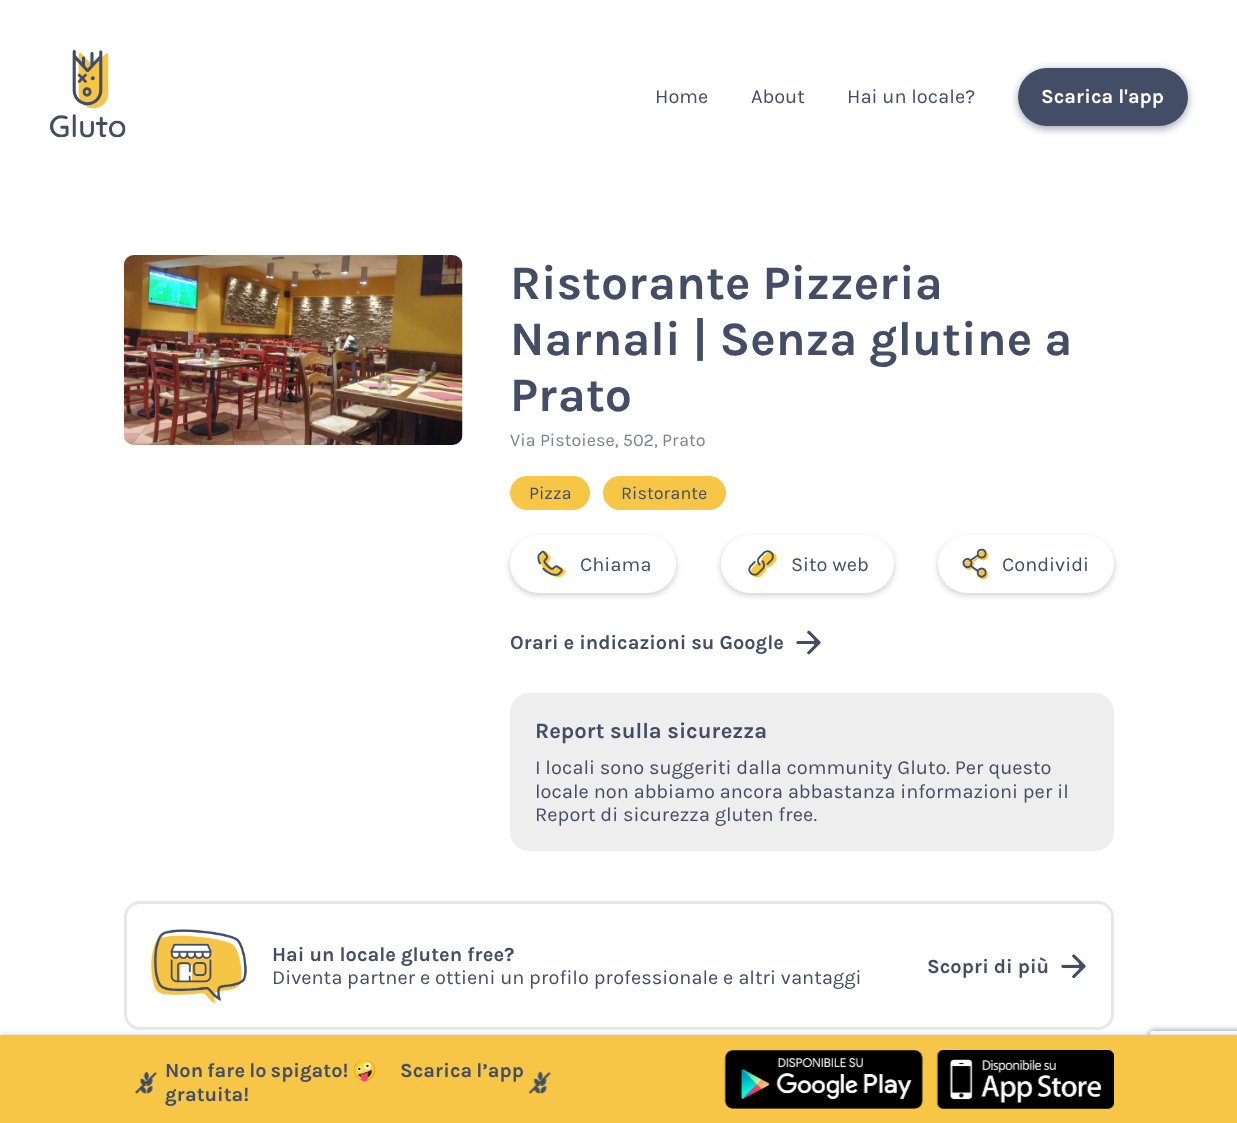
async function draw(canvas) {
	canvas.width = 1237;
	canvas.height = 1123;
	const c = canvas.getContext('2d');
	c.miterLimit = 4;
	c.fontKerning = 'normal';
	async function loadImage(src) {
		const img = new Image();
		img.src = src;
		await img.decode();
		return img;
	}

	c.fillStyle = '#fff';
	c.fillRect(0, 0, 1237, 1123);
	c.drawImage(await loadImage('img1.png'), 50, 50, 76, 88);
	c.font = '20px Karla';
	c.fillStyle = '#434e66';
	for (const [text, x, y] of [
		['Home', 655, 103],
		['About', 751, 103],
		['Hai un locale?', 847, 103],
	]) {
		c.fillText(text, x, y);
	}
	c.fillStyle = '#434e6680';
	c.filter = 'blur(4px)';
	c.beginPath();
	c.roundRect(1018, 70, 170, 59, 29.5);
	c.fill();
	c.filter = 'none';
	c.fillStyle = '#434e66';
	c.beginPath();
	c.roundRect(1018, 68, 170, 58, 29);
	c.fill();
	c.font = 'bold 20px Karla';
	c.fillStyle = '#fff';
	c.fillText('Scarica l\'app', 1041, 103);
	c.drawImage(await loadImage('img2.png'), 123, 255, 340, 190);
	c.font = 'bold 48px Karla';
	c.fillStyle = '#434e66';
	for (const [text, x, y] of [
		['Ristorante Pizzeria', 510, 299],
		['Narnali | Senza glutine a', 510, 355],
		['Prato', 510, 411],
	]) {
		c.fillText(text, x, y);
	}
	c.font = '18px Karla';
	c.fillStyle = '#7b8394';
	c.fillText('Via Pistoiese, 502, Prato', 510, 446);
	c.fillStyle = '#f7c647';
	c.beginPath();
	c.roundRect(510, 476, 80, 34, 17);
	c.fill();
	c.fillStyle = '#434e66';
	c.fillText('Pizza', 529, 499);
	c.fillStyle = '#f7c647';
	c.beginPath();
	c.roundRect(603, 476, 123, 34, 17);
	c.fill();
	c.fillStyle = '#434e66';
	c.fillText('Ristorante', 621, 499);
	c.fillStyle = '#00000033';
	c.filter = 'blur(3px)';
	c.beginPath();
	c.roundRect(510, 538, 166, 57, 28.5);
	c.fill();
	c.filter = 'none';
	c.fillStyle = '#fff';
	c.beginPath();
	c.roundRect(510, 535, 166, 58, 29);
	c.fill();
	c.drawImage(await loadImage('img3.png'), 537, 550, 29, 28);
	c.font = '20px Karla';
	c.fillStyle = '#434e66';
	c.fillText('Chiama', 580, 571);
	c.fillStyle = '#00000033';
	c.filter = 'blur(3px)';
	c.beginPath();
	c.roundRect(721, 538, 173, 57, 28.5);
	c.fill();
	c.filter = 'none';
	c.fillStyle = '#fff';
	c.beginPath();
	c.roundRect(721, 535, 173, 58, 29);
	c.fill();
	c.drawImage(await loadImage('img4.png'), 748, 550, 29, 28);
	c.fillStyle = '#434e66';
	c.fillText('Sito web', 791, 571);
	c.fillStyle = '#00000033';
	c.filter = 'blur(3px)';
	c.beginPath();
	c.roundRect(938, 538, 176, 57, 28.5);
	c.fill();
	c.filter = 'none';
	c.fillStyle = '#fff';
	c.beginPath();
	c.roundRect(938, 535, 176, 58, 29);
	c.fill();
	c.drawImage(await loadImage('img5.png'), 962, 548, 26, 32);
	c.fillStyle = '#434e66';
	c.fillText('Condividi', 1002, 571);
	c.font = 'bold 20px Karla';
	c.fillText('Orari e indicazioni su Google', 510, 649);
	c.drawImage(await loadImage('img6.png'), 796, 630, 25, 25);
	c.fillStyle = '#eee';
	c.beginPath();
	c.roundRect(510, 693, 604, 158, 19);
	c.fill();
	c.font = 'bold 22px Karla';
	c.fillStyle = '#434e66';
	c.fillText('Report sulla sicurezza', 535, 738);
	c.font = '20px Karla';
	for (const [text, x, y] of [
		['I locali sono suggeriti dalla community Gluto. Per questo', 535, 774],
		['locale non abbiamo ancora abbastanza informazioni per il', 535, 798],
		['Report di sicurezza gluten free.', 535, 821],
	]) {
		c.fillText(text, x, y);
	}
	c.beginPath();
	c.roundRect(125.5, 902.5, 987, 126, 14.5);
	c.strokeStyle = '#e7e7e7';
	c.lineWidth = 3;
	c.stroke();
	c.drawImage(await loadImage('img7.png'), 151, 929, 96, 75);
	c.font = 'bold 20px Karla';
	c.fillText('Hai un locale gluten free?', 272, 961);
	c.font = '20px Karla';
	c.fillText('Diventa partner e ottieni un profilo professionale e altri vantaggi', 272, 984);
	c.font = 'bold 20px Karla';
	c.fillText('Scopri di più', 927, 973);
	c.drawImage(await loadImage('img8.png'), 1061, 954, 25, 24);
	c.fillStyle = '#00000033';
	c.filter = 'blur(2.5px)';
	c.beginPath();
	c.rect(0, 1035, 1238, 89);
	c.fill();
	c.filter = 'none';
	c.save();
	c.beginPath();
	c.moveTo(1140, 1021);
	c.lineTo(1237, 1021);
	c.lineTo(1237, 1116);
	c.lineTo(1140, 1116);
	c.closePath();
	c.moveTo(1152.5, 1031);
	c.lineTo(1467.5, 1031);
	c.bezierCurveTo(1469, 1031, 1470, 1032, 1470, 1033.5);
	c.lineTo(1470, 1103.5);
	c.bezierCurveTo(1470, 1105, 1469, 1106, 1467.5, 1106);
	c.lineTo(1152.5, 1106);
	c.bezierCurveTo(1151, 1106, 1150, 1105, 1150, 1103.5);
	c.lineTo(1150, 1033.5);
	c.bezierCurveTo(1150, 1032, 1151, 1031, 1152.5, 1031);
	c.closePath();
	c.clip('evenodd');
	c.fillStyle = '#808080';
	c.filter = 'blur(3px)';
	c.beginPath();
	c.roundRect(1150, 1031, 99, 75, 2.5);
	c.fill();
	c.filter = 'none';
	c.restore();
	c.fillStyle = '#f7c647';
	c.fillRect(0, 1035, 1237, 88);
	c.drawImage(await loadImage('img9.png'), 134, 1071, 23, 23);
	c.wordSpacing = '-1px';
	c.fillStyle = '#434e66';
	c.fillText('Non fare lo spigato!', 165, 1077);
	c.wordSpacing = '0px';
	c.font = '20px Noto Color Emoji';
	c.fillText('🤪‍', 352, 1077);
	c.wordSpacing = '-1px';
	c.font = 'bold 20px Karla';
	c.fillText('Scarica l’app', 400, 1077);
	c.drawImage(await loadImage('img10.png'), 528, 1071, 23, 23);
	c.wordSpacing = '0px';
	c.fillText('gratuita!', 165, 1101);
	c.drawImage(await loadImage('img11.png'), 724, 1050, 199, 59);
	c.drawImage(await loadImage('img12.png'), 936, 1050, 178, 59);
}

draw(document.querySelector('canvas'));
